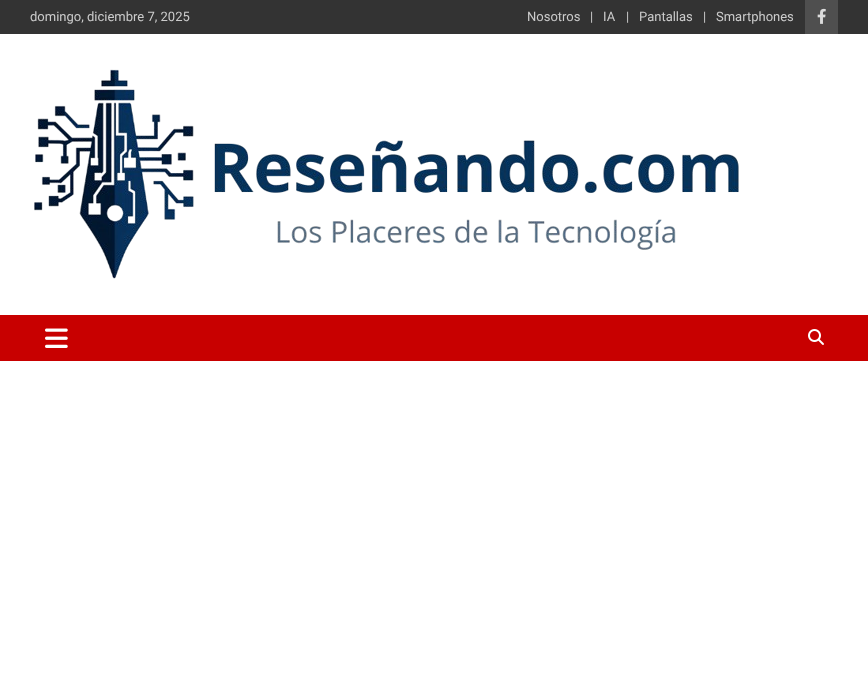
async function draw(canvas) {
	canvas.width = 868;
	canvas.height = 677;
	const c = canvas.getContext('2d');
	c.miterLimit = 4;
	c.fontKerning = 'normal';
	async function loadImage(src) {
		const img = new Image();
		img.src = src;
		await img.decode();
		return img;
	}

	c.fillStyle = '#fff';
	c.fillRect(0, 0, 868, 677);
	c.fillStyle = '#333';
	c.fillRect(0, 0, 868, 34);
	c.font = '13px Roboto';
	c.fillStyle = '#ccc';
	for (const [text, x, y] of [
		['domingo, diciembre 7, 2025', 30, 21],
		['Nosotros', 527, 21],
		['|', 590, 21],
		['IA', 603, 21],
		['|', 626, 21],
		['Pantallas', 639, 21],
		['|', 703, 21],
		['Smartphones', 716, 21],
	]) {
		c.fillText(text, x, y);
	}
	c.fillStyle = '#4f4f4f';
	c.fillRect(805, 0, 33, 34);
	c.drawImage(await loadImage('img1.png'), 817, 8, 9, 16);
	c.drawImage(await loadImage('img2.png'), 34, 69, 705, 210);
	c.fillStyle = '#c80000';
	c.fillRect(0, 315, 868, 46);
	c.drawImage(await loadImage('img3.png'), 45, 328, 23, 20);
	c.drawImage(await loadImage('img4.png'), 808, 329, 16, 16);
}

draw(document.querySelector('canvas'));
